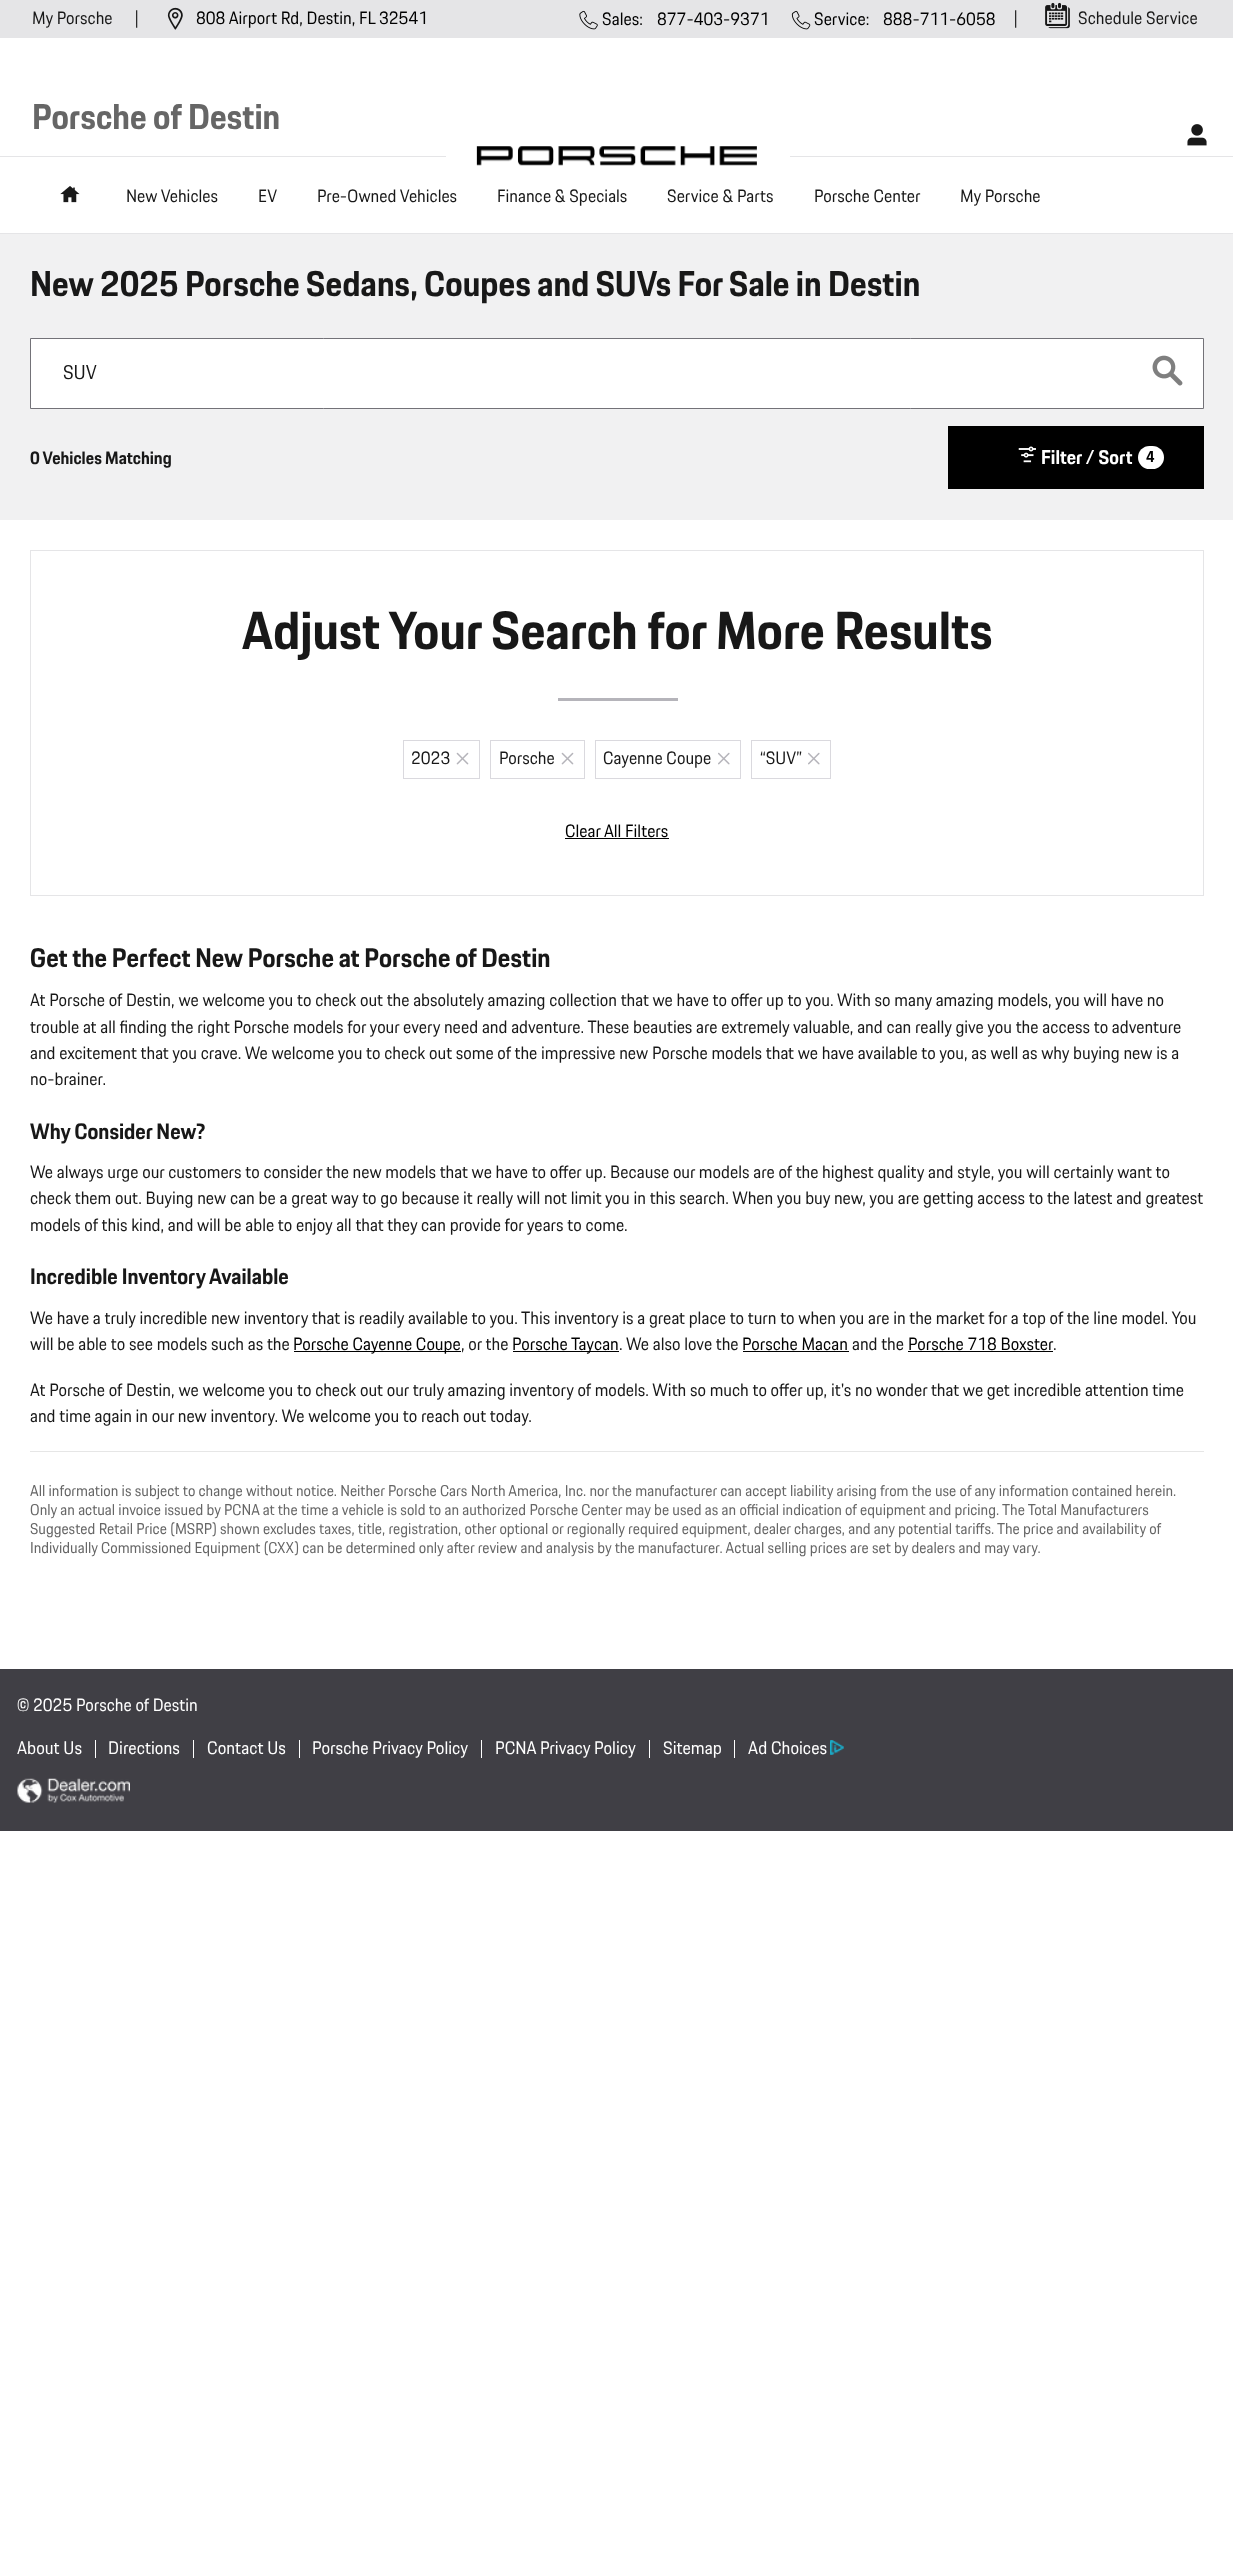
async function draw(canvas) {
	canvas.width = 1233;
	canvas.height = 2564;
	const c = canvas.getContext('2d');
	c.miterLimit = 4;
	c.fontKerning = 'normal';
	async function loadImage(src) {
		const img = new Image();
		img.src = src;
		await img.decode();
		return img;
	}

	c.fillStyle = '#fff';
	c.fillRect(0, 0, 1233, 2564);
	c.fillStyle = '#e5e5e7';
	c.fillRect(0, 0, 1233, 38);
	c.font = '17.5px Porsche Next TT';
	c.fillStyle = '#181818';
	for (const [text, x, y] of [
		['My Porsche', 32, 24],
		['|', 134, 24],
		['|', 1013, 24],
	]) {
		c.fillText(text, x, y);
	}
	c.drawImage(await loadImage('img1.png'), 1045, 2, 25, 27);
	c.fillText('Schedule Service', 1078, 24);
	c.drawImage(await loadImage('img2.png'), 167, 7, 16, 23);
	c.fillStyle = '#000';
	c.fillText('808 Airport Rd, Destin, FL', 196, 24);
	c.fillText('32541', 379, 24);
	c.drawImage(await loadImage('img3.png'), 579, 10, 19, 20);
	c.fillText('Sales:', 602, 25);
	c.fillText('877-403-9371', 657, 25);
	c.drawImage(await loadImage('img4.png'), 791, 10, 20, 20);
	c.fillText('Service:', 814, 25);
	c.fillText('888-711-6058', 883, 25);
	c.font = 'bold 35px Porsche Next TT';
	c.fillStyle = '#666';
	c.fillText('Porsche of Destin', 32, 129);
	c.fillStyle = '#e5e5e7';
	c.fillRect(0, 156, 1233, 1);
	c.fillStyle = '#fff';
	c.fillRect(446, 156, 344, 1);
	c.drawImage(await loadImage('img5.png'), 476, 146, 281, 20);
	c.drawImage(await loadImage('img6.png'), 1187, 124, 20, 22);
	c.fillStyle = '#e5e5e7';
	c.fillRect(0, 233, 1233, 1);
	c.drawImage(await loadImage('img7.png'), 60, 186, 20, 17);
	c.font = '17.5px Porsche Next TT';
	c.fillStyle = '#181818';
	for (const [text, x, y] of [
		['New Vehicles', 126, 202],
		['EV', 258, 202],
		['Pre-Owned Vehicles', 317, 202],
		['Finance & Specials', 497, 202],
		['Service & Parts', 667, 202],
		['Porsche Center', 814, 202],
		['My Porsche', 960, 202],
	]) {
		c.fillText(text, x, y);
	}
	c.fillStyle = '#f1f1f2';
	c.fillRect(0, 234, 1233, 286);
	c.font = 'bold 35px Porsche Next TT';
	c.fillStyle = '#181818';
	c.fillText('New 2025 Porsche Sedans, Coupes and SUVs For Sale in Destin', 30, 296);
	c.fillStyle = '#fff';
	c.beginPath();
	c.rect(30.5, 338.5, 1173, 70);
	c.fill();
	c.strokeStyle = '#737278';
	c.stroke();
	c.font = '19.5px Porsche Next TT';
	c.fillStyle = '#181818';
	c.fillText('SUV', 63, 379);
	c.drawImage(await loadImage('img8.png'), 1152, 355, 31, 31);
	c.font = 'bold 17.5px Porsche Next TT';
	c.fillText('0 Vehicles Matching', 30, 464);
	c.fillStyle = '#000';
	c.fillRect(948, 426, 256, 63);
	c.drawImage(await loadImage('img9.png'), 1018, 446, 18, 17);
	c.font = 'bold 19.5px Porsche Next TT';
	c.fillStyle = '#fff';
	c.fillText('Filter / Sort', 1041, 464);
	c.beginPath();
	c.roundRect(1138, 446, 26, 23, 11.5);
	c.fill();
	c.font = 'bold 15.3px Porsche Next TT';
	c.fillStyle = '#000';
	c.fillText('4', 1146, 462);
	c.strokeStyle = '#e5e5e7';
	c.strokeRect(30.5, 550.5, 1173, 345);
	c.font = 'bold 52.5px Porsche Next TT';
	c.fillStyle = '#181818';
	c.fillText('Adjust Your Search for More Results', 242, 649);
	c.fillStyle = '#b5b4ba';
	c.fillRect(558, 698, 120, 3);
	c.strokeStyle = '#dad9de';
	c.strokeRect(403.5, 740.5, 76, 38);
	c.font = '17.5px Porsche Next TT';
	c.fillStyle = '#181818';
	c.fillText('2023', 411, 764);
	c.drawImage(await loadImage('img10.png'), 456, 752, 13, 13);
	c.strokeRect(490.5, 740.5, 94, 38);
	c.fillText('Porsche', 499, 764);
	c.drawImage(await loadImage('img10.png'), 561, 752, 13, 13);
	c.strokeRect(595.5, 740.5, 145, 38);
	c.fillText('Cayenne Coupe', 603, 764);
	c.drawImage(await loadImage('img11.png'), 718, 752, 12, 13);
	c.strokeRect(751.5, 740.5, 79, 38);
	c.fillText('“SUV”', 760, 764);
	c.drawImage(await loadImage('img11.png'), 808, 752, 12, 13);
	c.fillStyle = '#000';
	c.fillText('Clear All Filters', 565, 837);
	c.fillRect(565, 838, 104, 1);
	c.font = 'bold 26.25px Porsche Next TT';
	c.fillStyle = '#181818';
	c.fillText('Get the Perfect New Porsche at Porsche of Destin', 30, 967);
	c.font = '17.5px Porsche Next TT';
	for (const [text, x, y] of [
		['At Porsche of Destin, we welcome you to check out the absolutely amazing collection that we have to offer up to you. With so many amazing models, you will have no', 30, 1006],
		['trouble at all finding the right Porsche models for your every need and adventure. These beauties are extremely valuable, and can really give you the access to adventure', 30, 1033],
		['and excitement that you crave. We welcome you to check out some of the impressive new Porsche models that we have available to you, as well as why buying new is a', 30, 1059],
		['no-brainer.', 30, 1085],
	]) {
		c.fillText(text, x, y);
	}
	c.font = 'bold 21.9px Porsche Next TT';
	c.fillText('Why Consider New?', 30, 1139);
	c.font = '17.5px Porsche Next TT';
	for (const [text, x, y] of [
		['We always urge our customers to consider the new models that we have to offer up. Because our models are of the highest quality and style, you will certainly want to', 30, 1178],
		['check them out. Buying new can be a great way to go because it really will not limit you in this search. When you buy new, you are getting access to the latest and greatest', 30, 1204],
		['models of this kind, and will be able to enjoy all that they can provide for years to come.', 30, 1231],
	]) {
		c.fillText(text, x, y);
	}
	c.font = 'bold 21.9px Porsche Next TT';
	c.fillText('Incredible Inventory Available', 30, 1284);
	c.font = '17.5px Porsche Next TT';
	c.fillText('We have a truly incredible new inventory that is readily available to you. This inventory is a great place to turn to when you are in the market for a top of the line model. You', 30, 1324);
	c.fillText('will be able to see models such as the', 30, 1350);
	c.fillStyle = '#000';
	c.fillRect(294, 1351, 167, 1);
	c.fillText('Porsche Cayenne Coupe', 293, 1350);
	c.fillStyle = '#181818';
	c.fillText(', or the', 461, 1350);
	c.fillStyle = '#000';
	c.fillRect(513, 1351, 106, 1);
	c.fillText('Porsche Taycan', 512, 1350);
	c.fillStyle = '#181818';
	c.fillText('. We also love the', 619, 1350);
	c.fillStyle = '#000';
	c.fillText('Porsche Macan', 742, 1350);
	c.fillRect(743, 1351, 106, 1);
	c.fillStyle = '#181818';
	c.fillText('and the', 852, 1350);
	c.fillStyle = '#000';
	c.fillText('Porsche 718 Boxster', 908, 1350);
	c.fillRect(908, 1351, 145, 1);
	c.fillStyle = '#181818';
	for (const [text, x, y] of [
		['.', 1053, 1350],
		['At Porsche of Destin, we welcome you to check out our truly amazing inventory of models. With so much to offer up, it\'s no wonder that we get incredible attention time', 30, 1396],
		['and time again in our new inventory. We welcome you to reach out today.', 30, 1422],
	]) {
		c.fillText(text, x, y);
	}
	c.fillStyle = '#e6e6e6';
	c.fillRect(30, 1451, 1174, 1);
	c.font = '15.3px Porsche Next TT';
	c.fillStyle = '#666';
	for (const [text, x, y] of [
		['All information is subject to change without notice. Neither Porsche Cars North America, Inc. nor the manufacturer can accept liability arising from the use of any information contained herein.', 30, 1496],
		['Only an actual invoice issued by PCNA at the time a vehicle is sold to an authorized Porsche Center may be used as an official indication of equipment and pricing. The Total Manufacturers', 30, 1515],
		['Suggested Retail Price (MSRP) shown excludes taxes, title, registration, other optional or regionally required equipment, dealer charges, and any potential tariffs. The price and availability of', 30, 1534],
		['Individually Commissioned Equipment (CXX) can be determined only after review and analysis by the manufacturer. Actual selling prices are set by dealers and may vary.', 30, 1553],
	]) {
		c.fillText(text, x, y);
	}
	c.fillStyle = '#403f45';
	c.fillRect(0, 1669, 1233, 162);
	c.font = '17.5px Porsche Next TT';
	c.fillStyle = '#fff';
	c.fillText('© 2025 Porsche of Destin', 17, 1711);
	c.font = '17.75px Porsche Next TT';
	c.fillText('About Us', 17, 1754);
	c.fillRect(95, 1740, 1, 18);
	c.fillText('Directions', 108, 1754);
	c.fillRect(193, 1740, 1, 18);
	c.fillText('Contact Us', 207, 1754);
	c.fillRect(299, 1740, 1, 18);
	c.fillText('Porsche Privacy Policy', 312, 1754);
	c.fillRect(481, 1740, 1, 18);
	c.fillText('PCNA Privacy Policy', 495, 1754);
	c.fillRect(649, 1740, 1, 18);
	c.fillText('Sitemap', 663, 1754);
	c.fillRect(734, 1740, 1, 18);
	c.fillText('Ad Choices', 748, 1754);
	c.drawImage(await loadImage('img12.png'), 830, 1740, 14, 15);
	c.drawImage(await loadImage('img13.png'), 17, 1778, 113, 25);
}

draw(document.querySelector('canvas'));
